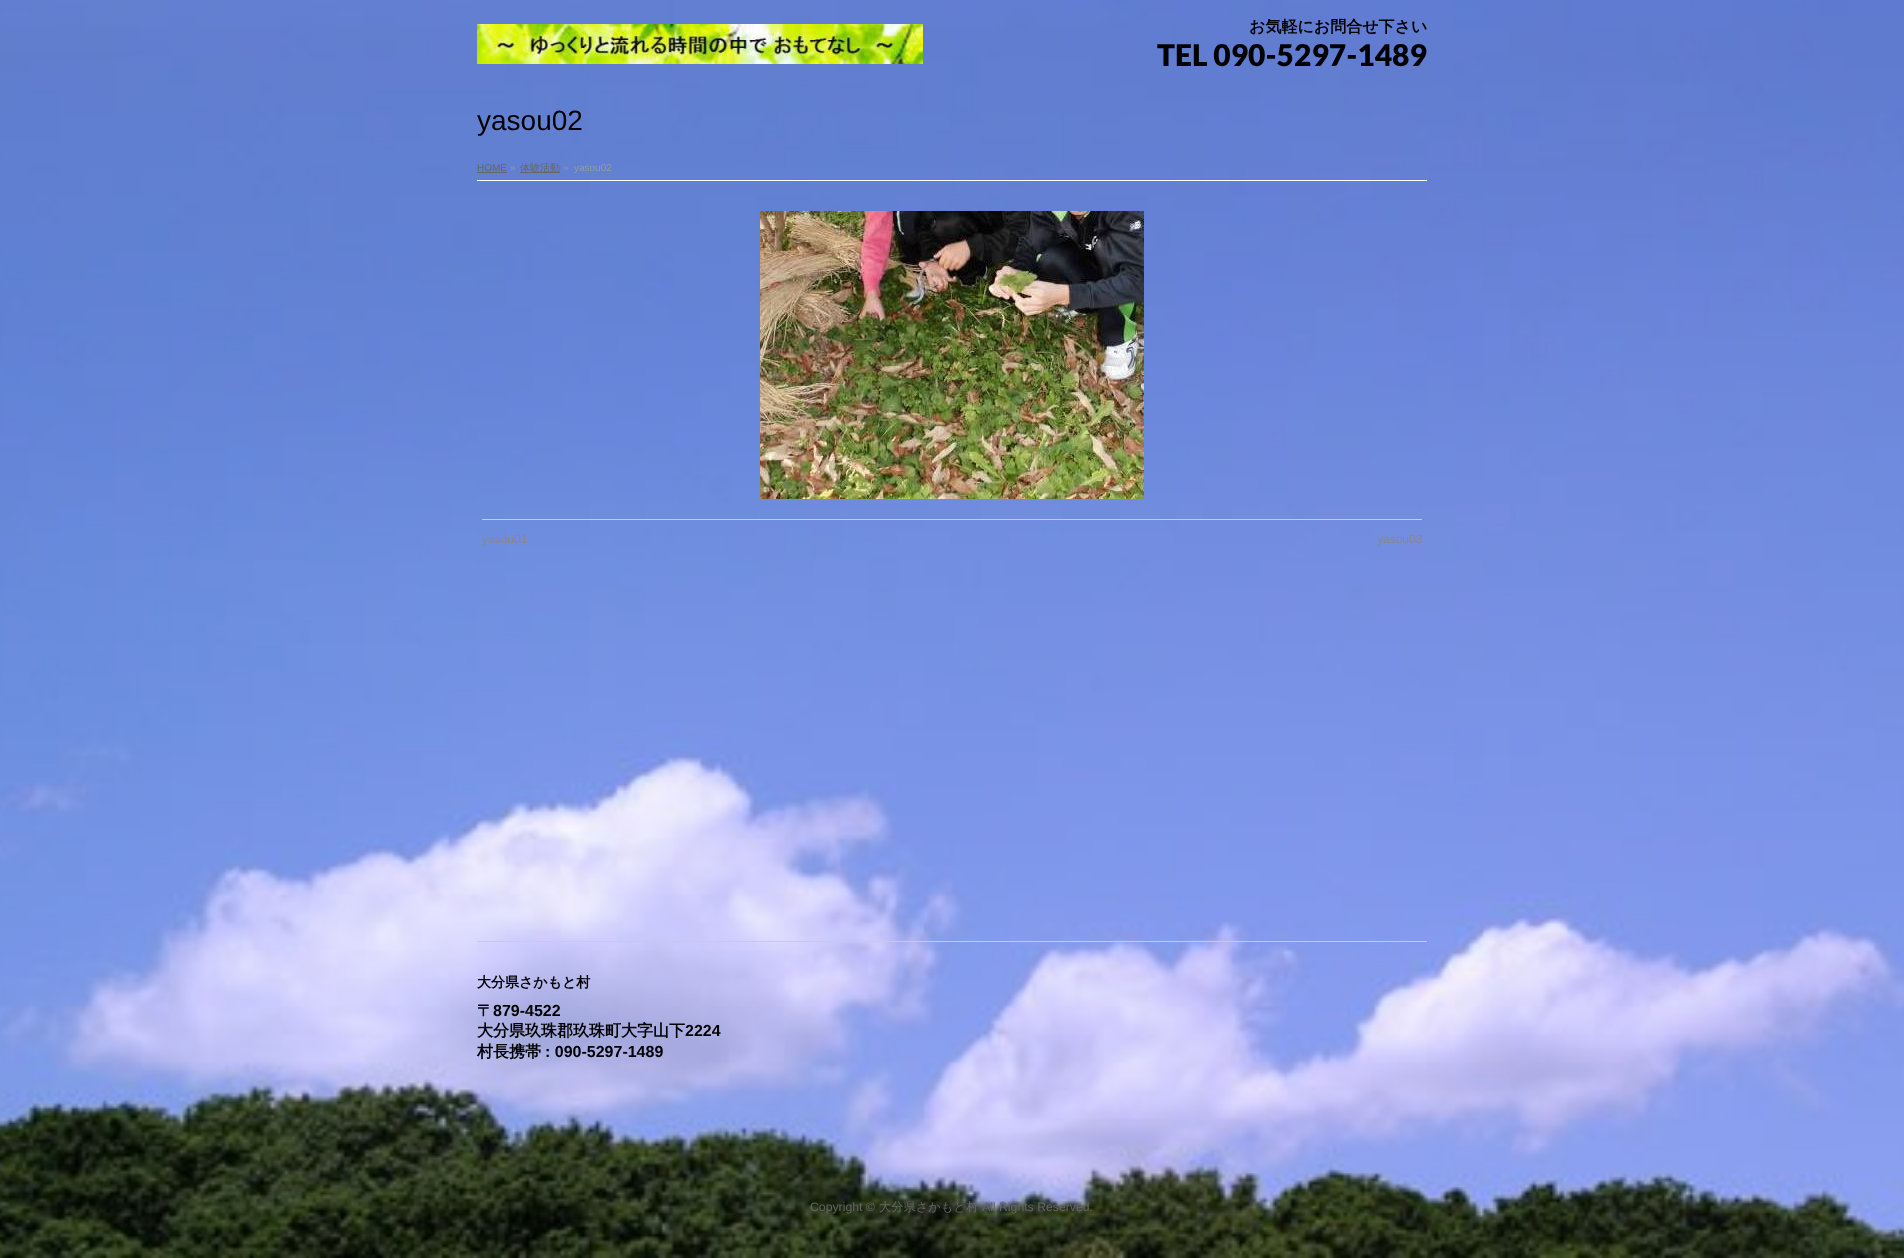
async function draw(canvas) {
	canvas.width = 1904;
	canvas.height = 1258;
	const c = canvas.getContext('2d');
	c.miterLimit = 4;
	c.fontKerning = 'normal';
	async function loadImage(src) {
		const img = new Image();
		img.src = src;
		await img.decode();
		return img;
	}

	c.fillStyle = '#fff';
	c.fillRect(0, 0, 1904, 1258);
	c.drawImage(await loadImage('img1.png'), 0, 0, 1904, 1258);
	c.drawImage(await loadImage('img2.png'), 477, 24, 446, 40);
	c.font = 'bold 16px WenQuanYi Zen Hei';
	c.fillStyle = '#000';
	c.fillText('お気軽にお問合せ下さい', 1249, 32);
	c.font = '900 30px Lato';
	c.fillText('TEL 090-5297-1489', 1157, 66);
	c.font = '28px Liberation Sans';
	c.fillText('yasou02', 477, 130);
	c.fillStyle = '#fff';
	c.fillRect(477, 180, 950, 1);
	c.font = '10px Liberation Sans';
	c.fillStyle = '#666';
	c.fillText('HOME', 477, 171);
	c.fillRect(477, 172, 30, 1);
	c.fillStyle = '#999';
	c.fillText('»', 510, 171);
	c.fillStyle = '#666';
	c.fillRect(520, 172, 40, 1);
	c.font = '500 10px WenQuanYi Zen Hei';
	c.fillText('体験活動', 520, 171);
	c.font = '10px Liberation Sans';
	c.fillStyle = '#999';
	c.fillText('»', 563, 171);
	c.fillText('yasou02', 574, 171);
	c.drawImage(await loadImage('img3.png'), 760, 211, 384, 288);
	c.fillStyle = '#ccc';
	c.fillRect(482, 519, 940, 1);
	c.font = '12px Liberation Sans';
	c.fillStyle = '#888';
	c.fillText('yasou01', 482, 543);
	c.fillText('yasou03', 1377, 543);
	c.fillStyle = '#ccc';
	c.fillRect(477, 941, 950, 1);
	c.font = 'bold 14px WenQuanYi Zen Hei';
	c.fillStyle = '#000';
	c.fillText('大分県さかもと村', 477, 987);
	c.font = 'bold 16px WenQuanYi Zen Hei';
	c.fillText('〒', 477, 1016);
	c.font = 'bold 16px Liberation Sans';
	c.fillText('879-4522', 493, 1016);
	c.font = 'bold 16px WenQuanYi Zen Hei';
	c.fillText('大分県玖珠郡玖珠町大字山下', 477, 1036);
	c.font = 'bold 16px Liberation Sans';
	c.fillText('2224', 685, 1036);
	c.font = 'bold 16px WenQuanYi Zen Hei';
	c.fillText('村長携帯', 477, 1057);
	c.font = 'bold 16px Liberation Sans';
	c.fillText(': 090-5297-1489', 545, 1057);
	c.font = '12.25px Liberation Sans';
	c.fillStyle = '#666';
	c.fillText('Copyright ©', 810, 1211);
	c.font = '500 12.25px WenQuanYi Zen Hei';
	c.fillText('大分県さかもと村', 879, 1211);
	c.font = '12.25px Liberation Sans';
	c.fillText('All Rights Reserved.', 982, 1211);
}

draw(document.querySelector('canvas'));
